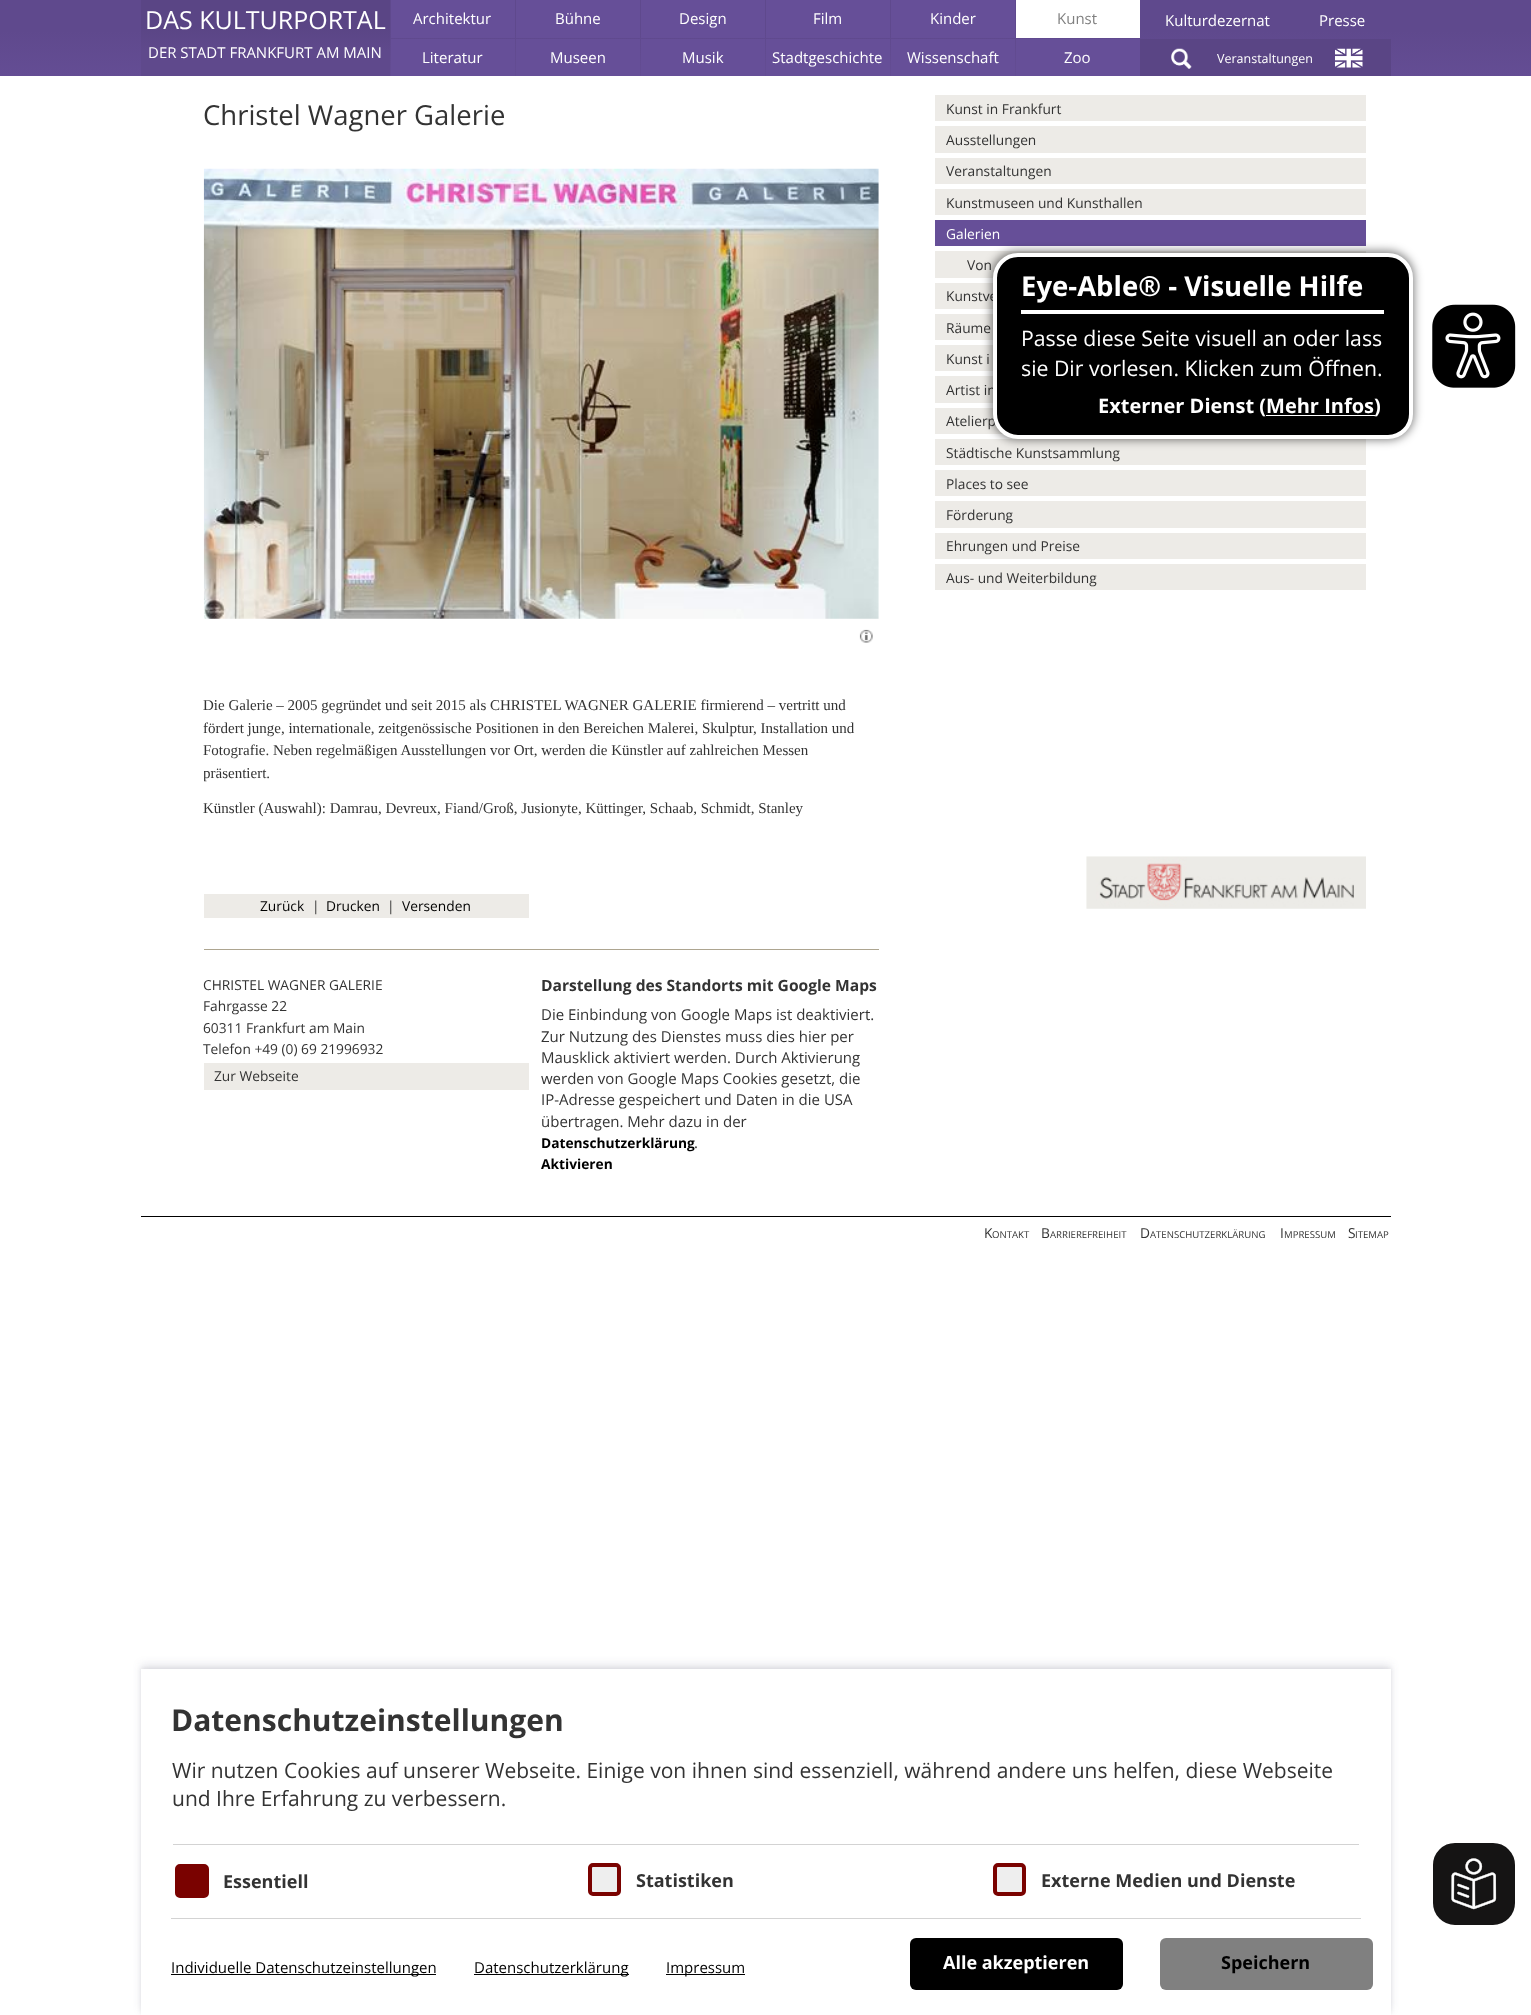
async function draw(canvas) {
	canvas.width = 1531;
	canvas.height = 2015;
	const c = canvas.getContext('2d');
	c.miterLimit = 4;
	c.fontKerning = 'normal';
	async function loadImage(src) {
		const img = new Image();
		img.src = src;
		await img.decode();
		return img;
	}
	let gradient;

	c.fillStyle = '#fff';
	c.fillRect(0, 0, 1531, 2015);
	gradient = c.createLinearGradient(766, 76, 766, 0);
	gradient.addColorStop(0, '#644d94');
	gradient.addColorStop(0.6, '#5f498d');
	gradient.addColorStop(1, '#5f498d');
	c.fillStyle = gradient;
	c.fillRect(0, 0, 1531, 76);
	gradient = c.createLinearGradient(266, 76, 266, 0);
	gradient.addColorStop(0, '#5f498c');
	gradient.addColorStop(0.33, '#5f498c');
	gradient.addColorStop(0.66, '#5a4585');
	gradient.addColorStop(1, '#5a4585');
	c.fillStyle = gradient;
	c.fillRect(141, 0, 249, 76);
	c.font = '25px Open Sans';
	c.fillStyle = '#fff';
	c.fillText('DAS KULTURPORTAL', 145, 29);
	c.font = '15px Open Sans';
	c.fillText('DER STADT FRANKFURT AM MAIN', 148, 58);
	c.fillStyle = '#664f98';
	c.fillRect(391, 0, 124, 38);
	c.fillStyle = '#fff';
	c.fillText('Architektur', 413, 24);
	c.fillStyle = '#664f98';
	c.fillRect(516, 0, 124, 38);
	c.fillStyle = '#fff';
	c.fillText('Bühne', 555, 24);
	c.fillStyle = '#664f98';
	c.fillRect(641, 0, 124, 38);
	c.fillStyle = '#fff';
	c.fillText('Design', 679, 24);
	c.fillStyle = '#664f98';
	c.fillRect(766, 0, 124, 38);
	c.fillStyle = '#fff';
	c.fillText('Film', 813, 24);
	c.fillStyle = '#664f98';
	c.fillRect(891, 0, 124, 38);
	c.fillStyle = '#fff';
	c.fillText('Kinder', 930, 24);
	c.fillRect(1016, 0, 124, 38);
	c.fillStyle = '#808080';
	c.fillText('Kunst', 1057, 24);
	c.fillStyle = '#664f98';
	c.fillRect(391, 39, 124, 37);
	c.fillStyle = '#fff';
	c.fillText('Literatur', 422, 63);
	c.fillStyle = '#664f98';
	c.fillRect(516, 39, 124, 37);
	c.fillStyle = '#fff';
	c.fillText('Museen', 550, 63);
	c.fillStyle = '#664f98';
	c.fillRect(641, 39, 124, 37);
	c.fillStyle = '#fff';
	c.fillText('Musik', 682, 63);
	c.fillStyle = '#664f98';
	c.fillRect(766, 39, 124, 37);
	c.fillStyle = '#fff';
	c.fillText('Stadtgeschichte', 772, 63);
	c.fillStyle = '#664f98';
	c.fillRect(891, 39, 124, 37);
	c.fillStyle = '#fff';
	c.fillText('Wissenschaft', 907, 63);
	c.fillStyle = '#664f98';
	c.fillRect(1016, 39, 124, 37);
	c.fillStyle = '#fff';
	for (const [text, x, y] of [
		['Zoo', 1064, 63],
		['Kulturdezernat', 1165, 26],
		['Presse', 1319, 26],
	]) {
		c.fillText(text, x, y);
	}
	c.fillStyle = '#5a4585';
	c.fillRect(1140, 39, 251, 37);
	c.drawImage(await loadImage('img1.png'), 1171, 48, 21, 21);
	c.font = '12.5px Open Sans';
	c.fillStyle = '#fff';
	c.fillText('Veranstaltungen', 1217, 63);
	c.drawImage(await loadImage('img2.png'), 1335, 48, 28, 20);
	c.fillStyle = '#000';
	c.fillRect(141, 1216, 1250, 1);
	c.font = '27.5px Open Sans';
	c.fillStyle = '#333';
	c.fillText('Christel Wagner Galerie', 203, 125);
	c.drawImage(await loadImage('img3.png'), 203, 168, 676, 451);
	c.drawImage(await loadImage('img4.png'), 859, 629, 14, 14);
	c.font = '15px Liberation Serif';
	for (const [text, x, y] of [
		['Die Galerie – 2005 gegründet und seit 2015 als CHRISTEL WAGNER GALERIE firmierend – vertritt und', 203, 710],
		['fördert junge, internationale, zeitgenössische Positionen in den Bereichen Malerei, Skulptur, Installation und', 203, 733],
		['Fotografie. Neben regelmäßigen Ausstellungen vor Ort, werden die Künstler auf zahlreichen Messen', 203, 755],
	]) {
		c.fillText(text, x, y);
	}
	c.save();
	c.beginPath();
	c.rect(204, 681, 675, 150);
	c.clip();
	c.fillText('präsentiert.', 203, 778);
	c.restore();
	c.fillText('Künstler (Auswahl): Damrau, Devreux, Fiand/Groß, Jusionyte, Küttinger, Schaab, Schmidt, Stanley', 203, 813);
	c.fillStyle = '#edebe7';
	c.fillRect(204, 894, 325, 24);
	c.font = '13.75px Open Sans';
	c.fillStyle = '#000';
	c.fillText('Zurück', 260, 911);
	c.fillStyle = '#333';
	c.fillText('|', 312, 911);
	c.fillStyle = '#000';
	c.fillText('Drucken', 326, 911);
	c.fillStyle = '#333';
	c.fillText('|', 387, 911);
	c.fillStyle = '#000';
	c.fillText('Versenden', 402, 911);
	c.fillStyle = '#ada590';
	c.fillRect(204, 949, 675, 1);
	c.fillStyle = '#333';
	for (const [text, x, y] of [
		['CHRISTEL WAGNER GALERIE', 203, 990],
		['Fahrgasse 22', 203, 1011],
		['60311 Frankfurt am Main', 203, 1033],
		['Telefon +49 (0) 69 21996932', 203, 1054],
	]) {
		c.fillText(text, x, y);
	}
	c.fillStyle = '#edebe7';
	c.fillRect(204, 1063, 325, 27);
	c.fillStyle = '#333';
	c.fillText('Zur Webseite', 214, 1081);
	c.font = 'bold 15.6px Open Sans';
	c.fillText('Darstellung des Standorts mit Google Maps', 541, 991);
	c.font = '15px Open Sans';
	for (const [text, x, y] of [
		['Die Einbindung von Google Maps ist deaktiviert.', 541, 1020],
		['Zur Nutzung des Dienstes muss dies hier per', 541, 1042],
		['Mausklick aktiviert werden. Durch Aktivierung', 541, 1063],
		['werden von Google Maps Cookies gesetzt, die', 541, 1084],
		['IP-Adresse gespeichert und Daten in die USA', 541, 1105],
		['übertragen. Mehr dazu in der', 541, 1127],
	]) {
		c.fillText(text, x, y);
	}
	c.font = 'bold 13.75px Open Sans';
	c.fillStyle = '#000';
	c.fillText('Datenschutzerklärung', 541, 1148);
	c.font = '15px Open Sans';
	c.fillStyle = '#333';
	c.fillText('.', 694, 1148);
	c.font = 'bold 13.75px Open Sans';
	c.fillStyle = '#000';
	c.fillText('Aktivieren', 541, 1169);
	c.fillStyle = '#edebe7';
	c.fillRect(935, 95, 431, 26);
	c.font = '13.75px Open Sans';
	c.fillStyle = '#333';
	c.fillText('Kunst in Frankfurt', 946, 114);
	c.fillStyle = '#edebe7';
	c.fillRect(935, 126, 431, 27);
	c.fillStyle = '#333';
	c.fillText('Ausstellungen', 946, 145);
	c.fillStyle = '#edebe7';
	c.fillRect(935, 158, 431, 26);
	c.fillStyle = '#333';
	c.fillText('Veranstaltungen', 946, 176);
	c.fillStyle = '#edebe7';
	c.fillRect(935, 189, 431, 26);
	c.fillStyle = '#333';
	c.fillText('Kunstmuseen und Kunsthallen', 946, 208);
	c.fillStyle = '#664f98';
	c.fillRect(935, 220, 431, 26);
	c.fillStyle = '#fff';
	c.fillText('Galerien', 946, 239);
	c.fillStyle = '#edebe7';
	c.fillRect(935, 251, 431, 27);
	c.fillStyle = '#333';
	c.fillText('Von', 967, 270);
	c.fillStyle = '#edebe7';
	c.fillRect(935, 283, 58, 26);
	c.fillStyle = '#333';
	c.fillText('Kunstve', 946, 301);
	c.fillStyle = '#edebe7';
	c.fillRect(935, 314, 58, 26);
	c.fillStyle = '#333';
	c.fillText('Räume', 946, 333);
	c.fillStyle = '#edebe7';
	c.fillRect(935, 345, 58, 26);
	c.fillStyle = '#333';
	c.fillText('Kunst i', 946, 364);
	c.fillStyle = '#edebe7';
	c.fillRect(935, 376, 58, 27);
	c.fillStyle = '#333';
	c.fillText('Artist in', 946, 395);
	c.fillStyle = '#edebe7';
	c.fillRect(935, 408, 68, 26);
	c.fillStyle = '#333';
	c.fillText('Atelierp', 946, 426);
	c.fillStyle = '#edebe7';
	c.fillRect(935, 439, 431, 26);
	c.fillStyle = '#333';
	c.fillText('Städtische Kunstsammlung', 946, 458);
	c.fillStyle = '#edebe7';
	c.fillRect(935, 470, 431, 26);
	c.fillStyle = '#333';
	c.fillText('Places to see', 946, 489);
	c.fillStyle = '#edebe7';
	c.fillRect(935, 501, 431, 27);
	c.fillStyle = '#333';
	c.fillText('Förderung', 946, 520);
	c.fillStyle = '#edebe7';
	c.fillRect(935, 533, 431, 26);
	c.fillStyle = '#333';
	c.fillText('Ehrungen und Preise', 946, 551);
	c.fillStyle = '#edebe7';
	c.fillRect(935, 564, 431, 26);
	c.fillStyle = '#333';
	c.fillText('Aus- und Weiterbildung', 946, 583);
	c.drawImage(await loadImage('img5.png'), 1086, 856, 280, 53);
	c.fillText('K', 984, 1238);
	c.font = '9.6px Open Sans';
	c.fillText('ONTAKT', 992, 1238);
	c.font = '13.75px Open Sans';
	c.fillText('B', 1041, 1238);
	c.font = '9.6px Open Sans';
	c.fillText('ARRIEREFREIHEIT', 1050, 1238);
	c.font = '13.75px Open Sans';
	c.fillText('D', 1140, 1238);
	c.font = '9.6px Open Sans';
	c.fillText('ATENSCHUTZERKLÄRUNG', 1150, 1238);
	c.font = '13.75px Open Sans';
	c.fillText('I', 1280, 1238);
	c.font = '9.6px Open Sans';
	c.fillText('MPRESSUM', 1284, 1238);
	c.font = '13.75px Open Sans';
	c.fillText('S', 1348, 1238);
	c.font = '9.6px Open Sans';
	c.fillText('ITEMAP', 1355, 1238);
	c.fillStyle = '#00000080';
	c.filter = 'blur(5px)';
	c.beginPath();
	c.roundRect(991, 251, 423, 189, 26);
	c.fill();
	c.filter = 'none';
	c.fillStyle = '#000';
	c.beginPath();
	c.roundRect(995, 255, 416, 182, 23);
	c.fill();
	c.strokeStyle = '#fff';
	c.lineWidth = 4;
	c.stroke();
	c.fillStyle = '#fff';
	c.fillRect(1021, 310, 363, 4);
	c.font = 'bold 27.5px Open Sans';
	c.fillText('Eye-Able® - Visuelle Hilfe', 1021, 296);
	c.font = '21.25px Open Sans';
	c.fillText('Passe diese Seite visuell an oder lass', 1021, 346);
	c.fillText('sie Dir vorlesen. Klicken zum Öffnen.', 1021, 376);
	c.font = 'bold 20px Open Sans';
	c.fillText('Externer Dienst (Mehr Infos)', 1098, 413);
	c.fillRect(1266, 415, 109, 1);
	c.drawImage(await loadImage('img6.png'), 1432, 304, 84, 84);
	c.fillStyle = '#00000014';
	c.filter = 'blur(2px)';
	c.beginPath();
	c.rect(141, 1668, 1250, 346);
	c.fill();
	c.filter = 'none';
	c.fillStyle = '#32325d1c';
	c.filter = 'blur(4px)';
	c.beginPath();
	c.rect(141, 1664, 1250, 346);
	c.fill();
	c.filter = 'none';
	c.fillStyle = '#fff';
	c.fillRect(141, 1669, 1250, 346);
	c.font = 'bold 30px Open Sans';
	c.fillStyle = '#333';
	c.fillText('Datenschutzeinstellungen', 171, 1731);
	c.fillStyle = '#d3d3d3';
	c.fillRect(173, 1844, 1186, 1);
	c.font = '21px Open Sans';
	c.fillStyle = '#333';
	c.fillText('Wir nutzen Cookies auf unserer Webseite. Einige von ihnen sind essenziell, während andere uns helfen, diese Webseite', 172, 1778);
	c.fillText('und Ihre Erfahrung zu verbessern.', 172, 1806);
	c.fillStyle = '#7a0200';
	c.beginPath();
	c.roundRect(177, 1866, 30, 30, 3);
	c.fill();
	c.strokeStyle = '#7a0200';
	c.stroke();
	c.font = 'bold 18px Open Sans';
	c.fillStyle = '#333';
	c.fillText('Essentiell', 223, 1888);
	c.fillStyle = '#eee';
	c.beginPath();
	c.roundRect(590, 1865, 29, 29, 3);
	c.fill();
	c.stroke();
	c.fillStyle = '#333';
	c.fillText('Statistiken', 636, 1887);
	c.fillStyle = '#eee';
	c.beginPath();
	c.roundRect(995, 1865, 29, 29, 3);
	c.fill();
	c.stroke();
	c.fillStyle = '#333';
	c.fillText('Externe Medien und Dienste', 1041, 1887);
	c.fillStyle = '#d3d3d3';
	c.fillRect(171, 1918, 1190, 1);
	c.fillStyle = '#000';
	c.fillRect(171, 1974, 265, 1);
	c.font = '15px Open Sans';
	c.fillText('Individuelle Datenschutzeinstellungen', 171, 1973);
	c.fillRect(474, 1974, 155, 1);
	c.fillText('Datenschutzerklärung', 474, 1973);
	c.fillRect(666, 1974, 79, 1);
	c.fillText('Impressum', 666, 1973);
	c.beginPath();
	c.roundRect(910, 1938, 213, 52, 6);
	c.fill();
	c.font = 'bold 18px Open Sans';
	c.fillStyle = '#fff';
	c.fillText('Alle akzeptieren', 943, 1969);
	c.fillStyle = '#808080';
	c.beginPath();
	c.roundRect(1160, 1938, 213, 52, 6);
	c.fill();
	c.fillStyle = '#000';
	c.fillText('Speichern', 1221, 1969);
	c.fillStyle = '#151414';
	c.beginPath();
	c.roundRect(1431.5, 1841.5, 85, 85, 23.5);
	c.fill();
	c.strokeStyle = '#fff';
	c.lineWidth = 3;
	c.stroke();
	c.drawImage(await loadImage('img7.png'), 1451, 1858, 46, 52);
}

draw(document.querySelector('canvas'));
